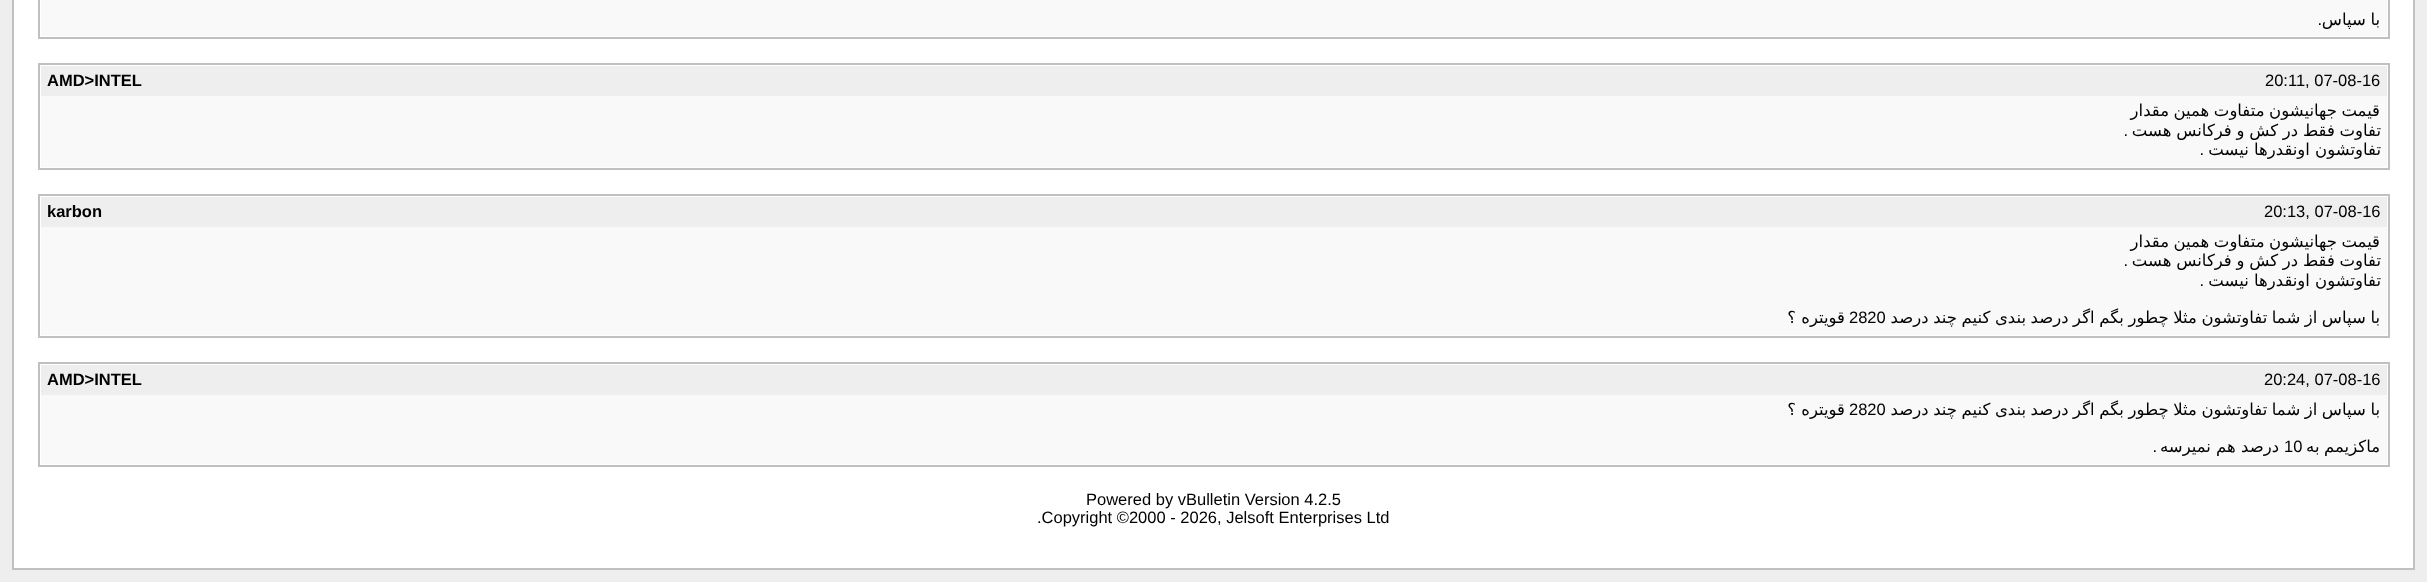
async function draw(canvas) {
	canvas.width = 2427;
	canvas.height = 582;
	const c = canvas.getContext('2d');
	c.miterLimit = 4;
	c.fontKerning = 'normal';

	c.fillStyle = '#eee';
	c.fillRect(0, 0, 2427, 582);
	c.fillStyle = '#fff';
	c.beginPath();
	c.rect(13, -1, 2401, 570);
	c.fill();
	c.strokeStyle = '#c0c0c0';
	c.lineWidth = 2;
	c.stroke();
	c.strokeRect(39, -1, 2350, 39);
	c.fillStyle = '#f9f9f9';
	c.fillRect(41, 0, 2346, 36);
	c.wordSpacing = '-0.7px';
	c.direction = 'rtl';
	c.font = '16.5px DejaVu Sans';
	c.fillStyle = '#000';
	c.fillText('با سپاس', 2380, 25);
	c.wordSpacing = '0px';
	c.font = '16.5px Liberation Sans';
	c.fillText('.', 2322, 25);
	c.strokeRect(39, 64, 2350, 105);
	c.fillStyle = '#eee';
	c.fillRect(41, 66, 2346, 30);
	c.direction = 'ltr';
	c.fillStyle = '#000';
	c.fillText('20:11, 07-08-16', 2265, 86);
	c.font = 'bold 16.5px Liberation Sans';
	c.fillText('AMD>INTEL', 47, 86);
	c.fillStyle = '#f9f9f9';
	c.fillRect(41, 96, 2346, 71);
	c.wordSpacing = '-0.7px';
	c.direction = 'rtl';
	c.font = '16.5px DejaVu Sans';
	c.fillStyle = '#000';
	c.fillText('قیمت جهانیشون متفاوت همین مقدار', 2380, 116);
	c.wordSpacing = '-0.5px';
	c.fillText('تفاوت فقط در کش و فرکانس هست', 2381, 136);
	c.wordSpacing = '0px';
	c.font = '16.5px Liberation Sans';
	c.fillText('.', 2128, 136);
	c.font = '16.5px DejaVu Sans';
	c.fillText('تفاوتشون اونقدرها نیست', 2381, 155);
	c.font = '16.5px Liberation Sans';
	c.fillText('.', 2204, 155);
	c.strokeRect(39, 195, 2350, 142);
	c.fillStyle = '#eee';
	c.fillRect(41, 197, 2346, 30);
	c.direction = 'ltr';
	c.fillStyle = '#000';
	c.fillText('20:13, 07-08-16', 2264, 217);
	c.font = 'bold 16.5px Liberation Sans';
	c.fillText('karbon', 47, 217);
	c.fillStyle = '#f9f9f9';
	c.fillRect(41, 227, 2346, 108);
	c.wordSpacing = '-0.7px';
	c.direction = 'rtl';
	c.font = '16.5px DejaVu Sans';
	c.fillStyle = '#000';
	c.fillText('قیمت جهانیشون متفاوت همین مقدار', 2380, 247);
	c.wordSpacing = '-0.5px';
	c.fillText('تفاوت فقط در کش و فرکانس هست', 2381, 266);
	c.wordSpacing = '0px';
	c.font = '16.5px Liberation Sans';
	c.fillText('.', 2128, 266);
	c.font = '16.5px DejaVu Sans';
	c.fillText('تفاوتشون اونقدرها نیست', 2381, 286);
	c.font = '16.5px Liberation Sans';
	c.fillText('.', 2204, 286);
	c.wordSpacing = '-0.7px';
	c.font = '16.5px DejaVu Sans';
	c.fillText('با سپاس از شما تفاوتشون مثلا چطور بگم اگر درصد بندی کنیم چند درصد', 2380, 323);
	c.wordSpacing = '0px';
	c.direction = 'ltr';
	c.font = '16.5px Liberation Sans';
	c.fillText('2820', 1849, 323);
	c.direction = 'rtl';
	c.font = '16.5px DejaVu Sans';
	c.fillText('قویتره ؟', 1845, 323);
	c.strokeRect(39, 363, 2350, 103);
	c.fillStyle = '#eee';
	c.fillRect(41, 365, 2346, 30);
	c.direction = 'ltr';
	c.font = '16.5px Liberation Sans';
	c.fillStyle = '#000';
	c.fillText('20:24, 07-08-16', 2264, 385);
	c.font = 'bold 16.5px Liberation Sans';
	c.fillText('AMD>INTEL', 47, 385);
	c.fillStyle = '#f9f9f9';
	c.fillRect(41, 395, 2346, 69);
	c.wordSpacing = '-0.7px';
	c.direction = 'rtl';
	c.font = '16.5px DejaVu Sans';
	c.fillStyle = '#000';
	c.fillText('با سپاس از شما تفاوتشون مثلا چطور بگم اگر درصد بندی کنیم چند درصد', 2380, 415);
	c.wordSpacing = '0px';
	c.direction = 'ltr';
	c.font = '16.5px Liberation Sans';
	c.fillText('2820', 1849, 415);
	c.direction = 'rtl';
	c.font = '16.5px DejaVu Sans';
	c.fillText('قویتره ؟', 1845, 415);
	c.wordSpacing = '-0.7px';
	c.fillText('ماکزیمم به', 2380, 452);
	c.wordSpacing = '0px';
	c.direction = 'ltr';
	c.font = '16.5px Liberation Sans';
	c.fillText('10', 2284, 452);
	c.direction = 'rtl';
	c.font = '16.5px DejaVu Sans';
	c.fillText('درصد هم نمیرسه', 2279, 452);
	c.font = '16.5px Liberation Sans';
	c.fillText('.', 2157, 452);
	c.direction = 'ltr';
	c.fillText('Powered by vBulletin Version 4.2.5', 1086, 505);
	c.fillText('.Copyright ©2000 - 2026, Jelsoft Enterprises Ltd', 1037, 523);
}

draw(document.querySelector('canvas'));
